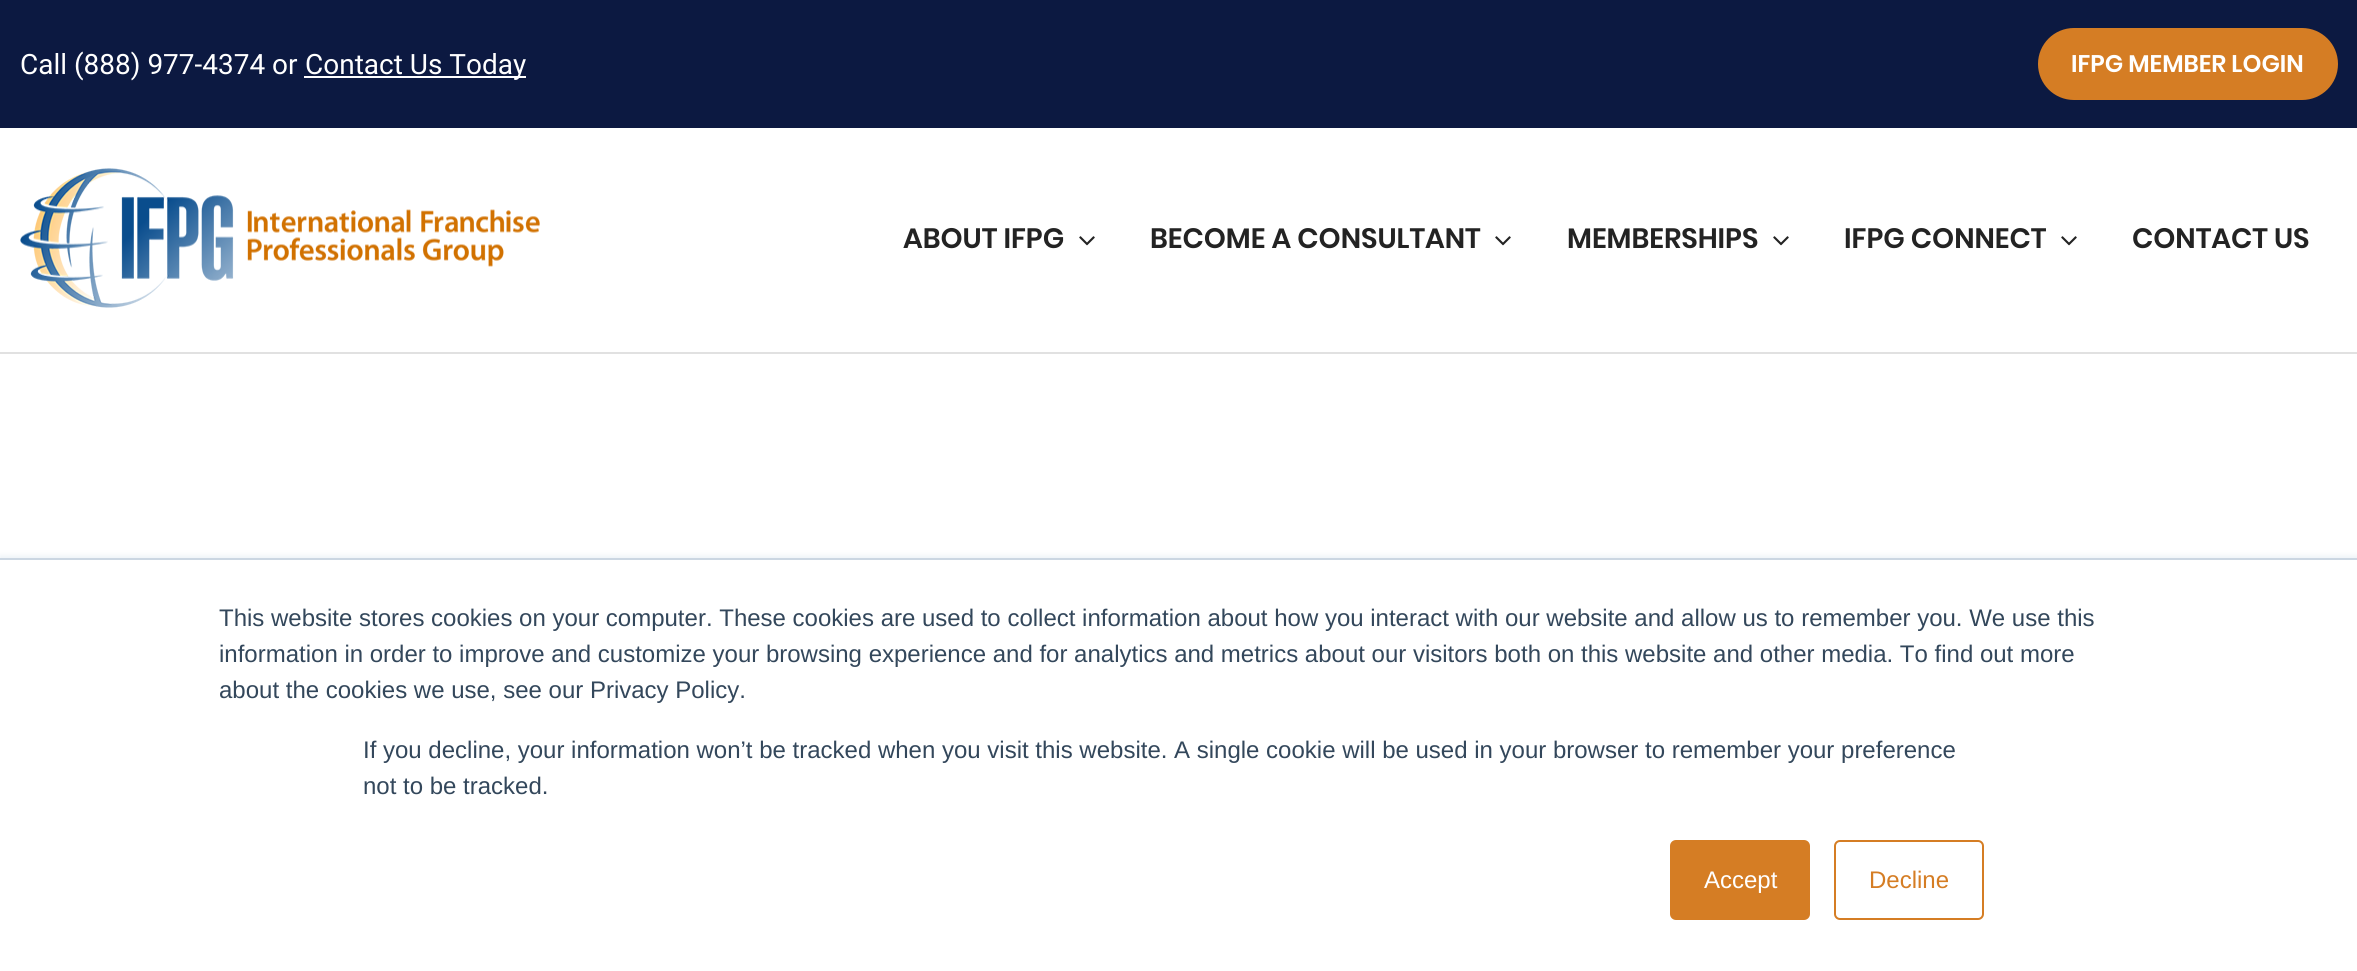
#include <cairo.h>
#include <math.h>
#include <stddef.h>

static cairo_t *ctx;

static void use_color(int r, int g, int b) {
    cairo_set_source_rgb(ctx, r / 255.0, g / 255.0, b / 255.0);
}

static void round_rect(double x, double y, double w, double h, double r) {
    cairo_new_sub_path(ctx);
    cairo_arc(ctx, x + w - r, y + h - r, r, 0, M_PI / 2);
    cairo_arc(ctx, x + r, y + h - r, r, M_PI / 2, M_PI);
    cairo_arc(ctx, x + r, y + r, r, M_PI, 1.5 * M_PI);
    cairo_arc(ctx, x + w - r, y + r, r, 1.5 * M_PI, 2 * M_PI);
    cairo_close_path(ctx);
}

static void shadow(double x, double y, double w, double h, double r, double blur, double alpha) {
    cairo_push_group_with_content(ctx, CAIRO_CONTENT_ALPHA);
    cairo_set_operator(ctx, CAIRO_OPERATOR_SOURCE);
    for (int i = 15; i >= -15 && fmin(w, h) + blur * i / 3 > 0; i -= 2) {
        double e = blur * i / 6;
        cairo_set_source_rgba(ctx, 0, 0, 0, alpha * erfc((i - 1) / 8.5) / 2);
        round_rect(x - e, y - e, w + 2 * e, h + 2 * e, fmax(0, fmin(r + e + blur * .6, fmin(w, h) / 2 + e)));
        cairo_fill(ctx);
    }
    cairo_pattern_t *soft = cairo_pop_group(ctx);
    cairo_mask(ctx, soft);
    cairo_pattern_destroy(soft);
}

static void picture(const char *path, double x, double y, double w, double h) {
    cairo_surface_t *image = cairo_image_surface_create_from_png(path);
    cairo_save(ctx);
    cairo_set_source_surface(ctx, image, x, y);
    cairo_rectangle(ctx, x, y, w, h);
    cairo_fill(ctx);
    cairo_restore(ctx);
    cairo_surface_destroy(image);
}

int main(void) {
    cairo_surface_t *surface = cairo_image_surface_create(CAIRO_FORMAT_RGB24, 2357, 971);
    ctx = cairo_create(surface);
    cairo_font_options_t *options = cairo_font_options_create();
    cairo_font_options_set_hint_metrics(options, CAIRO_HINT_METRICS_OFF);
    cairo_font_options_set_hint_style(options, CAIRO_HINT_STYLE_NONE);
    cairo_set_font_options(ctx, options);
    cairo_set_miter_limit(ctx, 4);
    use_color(255, 255, 255);
    cairo_paint(ctx);
    use_color(225, 225, 225);
    cairo_rectangle(ctx, 0, 352, 2357, 2);
    cairo_fill(ctx);
    use_color(12, 25, 65);
    cairo_rectangle(ctx, 0, 0, 2357, 128);
    cairo_fill(ctx);
    cairo_select_font_face(ctx, "Roboto", CAIRO_FONT_SLANT_NORMAL, CAIRO_FONT_WEIGHT_NORMAL);
    cairo_set_font_size(ctx, 28);
    use_color(255, 255, 255);
    cairo_move_to(ctx, 20, 74);
    cairo_show_text(ctx, "Call (888) 977-4374 or");
    cairo_rectangle(ctx, 304, 76, 222, 2);
    cairo_fill(ctx);
    cairo_move_to(ctx, 305, 74);
    cairo_show_text(ctx, "Contact Us Today");
    use_color(213, 125, 36);
    round_rect(2040, 30, 296, 68, 34);
    cairo_fill_preserve(ctx);
    cairo_set_line_width(ctx, 4);
    cairo_stroke(ctx);
    cairo_select_font_face(ctx, "Poppins SemiBold", CAIRO_FONT_SLANT_NORMAL, CAIRO_FONT_WEIGHT_NORMAL);
    cairo_set_font_size(ctx, 24);
    use_color(255, 255, 255);
    cairo_move_to(ctx, 2071, 72);
    cairo_show_text(ctx, "IFPG MEMBER LOGIN");
    picture("img1.png", 20, 168, 520, 140);
    cairo_set_font_size(ctx, 28);
    use_color(35, 35, 35);
    cairo_move_to(ctx, 903, 248);
    cairo_show_text(ctx, "ABOUT IFPG");
    picture("img2.png", 1079, 236, 16, 10);
    cairo_move_to(ctx, 1150, 248);
    cairo_show_text(ctx, "BECOME A CONSULTANT");
    picture("img2.png", 1495, 236, 16, 10);
    cairo_move_to(ctx, 1567, 248);
    cairo_show_text(ctx, "MEMBERSHIPS");
    picture("img2.png", 1773, 236, 16, 10);
    cairo_move_to(ctx, 1844, 248);
    cairo_show_text(ctx, "IFPG CONNECT");
    picture("img2.png", 2061, 236, 16, 10);
    cairo_move_to(ctx, 2132, 248);
    cairo_show_text(ctx, "CONTACT US");
    use_color(234, 240, 246);
    shadow(0, 556, 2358, 414, 0, 3, 1);
    use_color(255, 255, 255);
    cairo_rectangle(ctx, 0, 560, 2357, 411);
    cairo_fill(ctx);
    use_color(203, 214, 226);
    cairo_rectangle(ctx, 0, 558, 2357, 2);
    cairo_fill(ctx);
    cairo_select_font_face(ctx, "Liberation Sans", CAIRO_FONT_SLANT_NORMAL, CAIRO_FONT_WEIGHT_NORMAL);
    cairo_set_font_size(ctx, 24);
    use_color(51, 71, 91);
    cairo_move_to(ctx, 219, 626);
    cairo_show_text(ctx, "This website stores cookies on your computer. These cookies are used to collect information about how you interact with our website and allow us to remember you. We use this");
    cairo_move_to(ctx, 219, 662);
    cairo_show_text(ctx, "information in order to improve and customize your browsing experience and for analytics and metrics about our visitors both on this website and other media. To find out more");
    cairo_move_to(ctx, 219, 698);
    cairo_show_text(ctx, "about the cookies we use, see our Privacy Policy.");
    cairo_move_to(ctx, 363, 758);
    cairo_show_text(ctx, "If you decline, your information won’t be tracked when you visit this website. A single cookie will be used in your browser to remember your preference");
    cairo_move_to(ctx, 363, 794);
    cairo_show_text(ctx, "not to be tracked.");
    use_color(213, 125, 36);
    round_rect(1671, 841, 138, 78, 5);
    cairo_fill_preserve(ctx);
    cairo_set_line_width(ctx, 2);
    cairo_stroke(ctx);
    use_color(255, 255, 255);
    cairo_move_to(ctx, 1704, 888);
    cairo_show_text(ctx, "Accept");
    round_rect(1835, 841, 148, 78, 5);
    use_color(213, 125, 36);
    cairo_stroke(ctx);
    cairo_move_to(ctx, 1869, 888);
    cairo_show_text(ctx, "Decline");
    cairo_surface_write_to_png(surface, "result.png");
    cairo_font_options_destroy(options);
    cairo_destroy(ctx);
    cairo_surface_destroy(surface);
    return 0;
}
